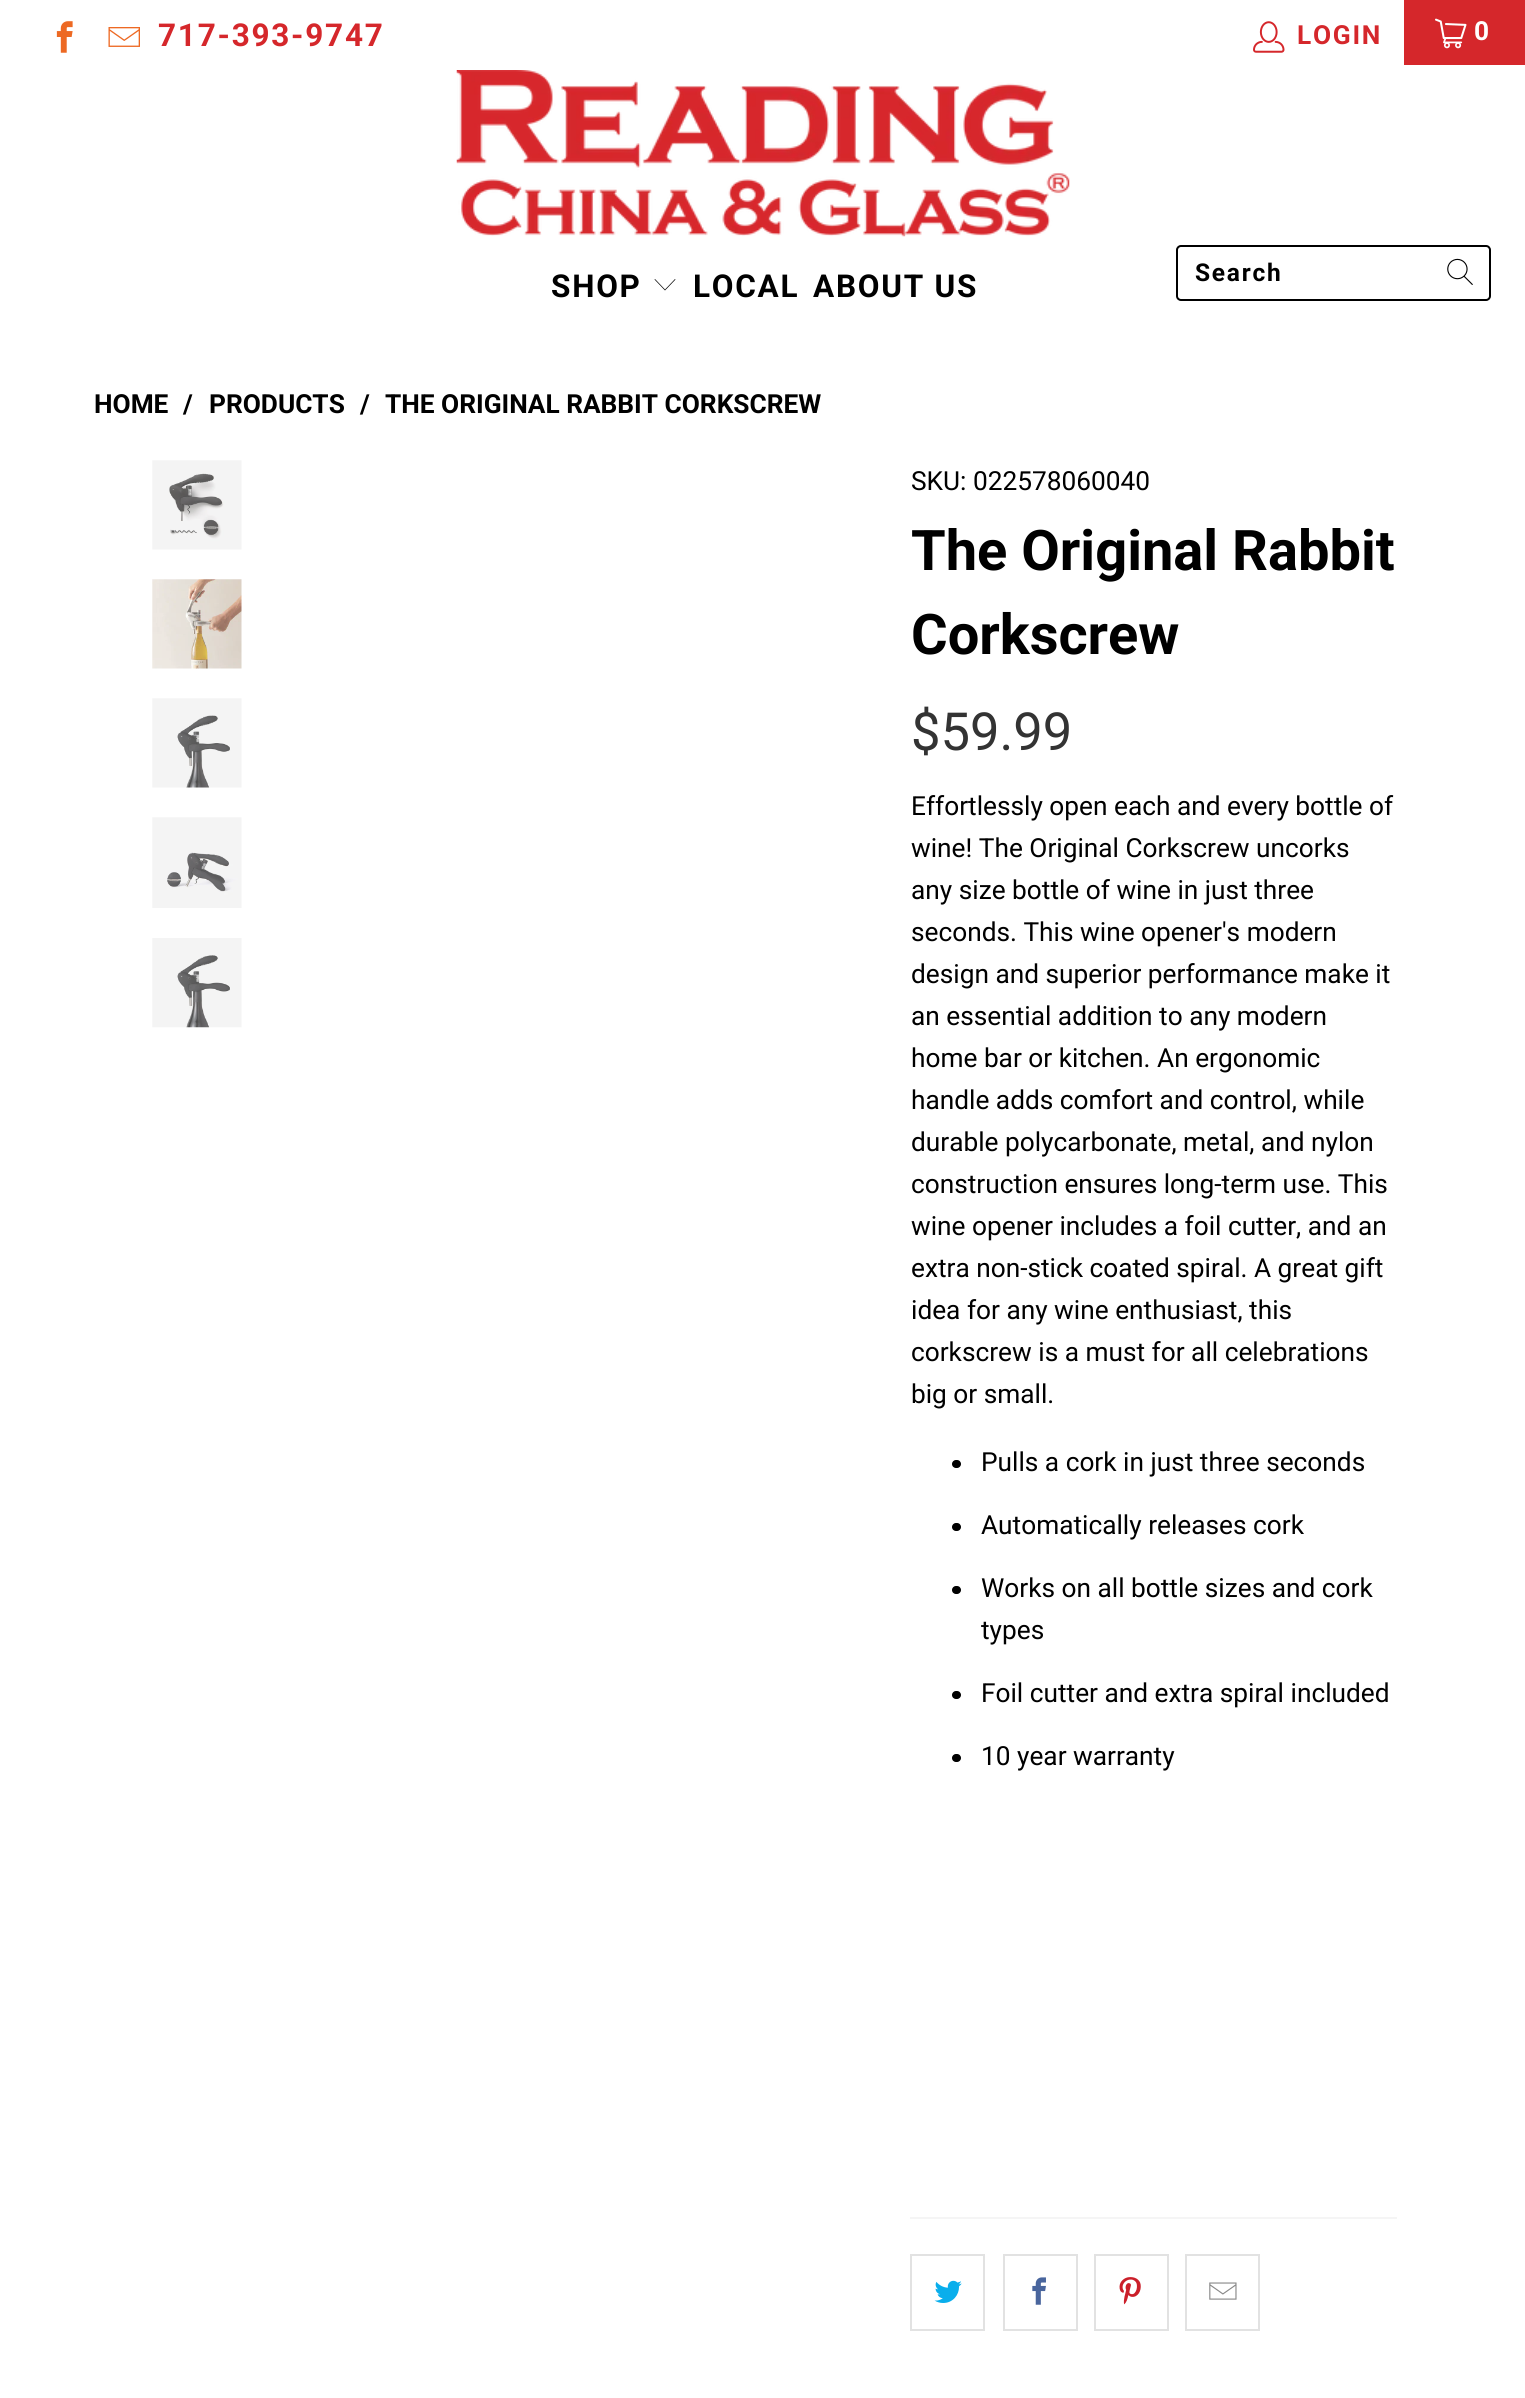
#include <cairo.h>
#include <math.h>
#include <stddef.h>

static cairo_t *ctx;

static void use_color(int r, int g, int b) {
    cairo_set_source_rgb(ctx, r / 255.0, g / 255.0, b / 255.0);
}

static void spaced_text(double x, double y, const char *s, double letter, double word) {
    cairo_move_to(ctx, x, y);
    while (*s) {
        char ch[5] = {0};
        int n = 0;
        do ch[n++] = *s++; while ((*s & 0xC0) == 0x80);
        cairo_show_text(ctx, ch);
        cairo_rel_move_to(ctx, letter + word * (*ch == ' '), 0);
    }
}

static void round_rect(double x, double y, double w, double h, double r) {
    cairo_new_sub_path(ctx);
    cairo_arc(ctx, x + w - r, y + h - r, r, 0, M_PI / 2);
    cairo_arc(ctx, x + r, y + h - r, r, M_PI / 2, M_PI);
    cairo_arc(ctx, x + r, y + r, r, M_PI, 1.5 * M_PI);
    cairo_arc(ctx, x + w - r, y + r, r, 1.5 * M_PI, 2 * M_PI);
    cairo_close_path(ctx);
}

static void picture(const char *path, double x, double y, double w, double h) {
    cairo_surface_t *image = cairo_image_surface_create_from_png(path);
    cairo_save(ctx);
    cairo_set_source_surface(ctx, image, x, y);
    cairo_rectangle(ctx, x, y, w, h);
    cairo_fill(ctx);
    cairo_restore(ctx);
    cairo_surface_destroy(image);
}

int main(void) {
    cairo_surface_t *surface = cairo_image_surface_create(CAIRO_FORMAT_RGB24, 1525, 2398);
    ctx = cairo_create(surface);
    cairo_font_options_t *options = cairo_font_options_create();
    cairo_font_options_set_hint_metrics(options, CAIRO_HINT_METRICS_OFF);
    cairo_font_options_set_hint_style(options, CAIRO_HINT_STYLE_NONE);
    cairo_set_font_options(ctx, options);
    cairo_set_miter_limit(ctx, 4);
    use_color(255, 255, 255);
    cairo_paint(ctx);
    picture("img1.png", 56, 21, 17, 32);
    picture("img2.png", 108, 27, 32, 20);
    cairo_select_font_face(ctx, "Roboto", CAIRO_FONT_SLANT_NORMAL, CAIRO_FONT_WEIGHT_BOLD);
    cairo_set_font_size(ctx, 31.5);
    use_color(213, 39, 43);
    spaced_text(158, 46, "717-393-9747", 1.75, 0);
    picture("img3.png", 1253, 21, 32, 32);
    cairo_set_font_size(ctx, 26.25);
    spaced_text(1297, 44, "LOGIN", 1.75, 0);
    cairo_rectangle(ctx, 1404, 0, 121, 65);
    cairo_fill(ctx);
    picture("img4.png", 1435, 18, 32, 31);
    use_color(255, 255, 255);
    spaced_text(1474, 40, "0", 1.75, 0);
    picture("img5.png", 456, 70, 614, 167);
    round_rect(1177, 246, 313, 54, 4);
    use_color(0, 0, 0);
    cairo_stroke(ctx);
    cairo_set_font_size(ctx, 24.5);
    spaced_text(1195, 281, "Search", 1.75, 0);
    picture("img6.png", 1447, 258, 26, 27);
    cairo_set_font_size(ctx, 31.5);
    spaced_text(551, 297, "SHOP", 1.75, 0);
    cairo_new_path(ctx);
    cairo_move_to(ctx, 665, 290.5);
    cairo_line_to(ctx, 654.5, 279.5);
    cairo_line_to(ctx, 655, 279);
    cairo_line_to(ctx, 665, 289.5);
    cairo_line_to(ctx, 675, 279);
    cairo_line_to(ctx, 675.5, 279.5);
    cairo_close_path(ctx);
    cairo_fill(ctx);
    spaced_text(693, 297, "LOCAL", 1.75, 0);
    spaced_text(813, 297, "ABOUT US", 1.75, 0);
    cairo_set_font_size(ctx, 26.25);
    cairo_move_to(ctx, 94, 413);
    cairo_show_text(ctx, "HOME");
    cairo_move_to(ctx, 183, 413);
    cairo_show_text(ctx, "/");
    cairo_move_to(ctx, 209, 413);
    cairo_show_text(ctx, "PRODUCTS");
    cairo_move_to(ctx, 360, 413);
    cairo_show_text(ctx, "/");
    cairo_move_to(ctx, 385, 413);
    cairo_show_text(ctx, "THE ORIGINAL RABBIT CORKSCREW");
    picture("img7.png", 152, 460, 90, 90);
    picture("img8.png", 152, 579, 90, 90);
    picture("img9.png", 152, 698, 90, 90);
    picture("img10.png", 152, 817, 90, 91);
    picture("img11.png", 152, 938, 90, 90);
    cairo_select_font_face(ctx, "Roboto", CAIRO_FONT_SLANT_NORMAL, CAIRO_FONT_WEIGHT_NORMAL);
    cairo_move_to(ctx, 911, 490);
    cairo_show_text(ctx, "SKU: 022578060040");
    cairo_select_font_face(ctx, "Roboto", CAIRO_FONT_SLANT_NORMAL, CAIRO_FONT_WEIGHT_BOLD);
    cairo_set_font_size(ctx, 56);
    cairo_move_to(ctx, 911, 570);
    cairo_show_text(ctx, "The Original Rabbit");
    cairo_move_to(ctx, 911, 654);
    cairo_show_text(ctx, "Corkscrew");
    cairo_select_font_face(ctx, "Roboto", CAIRO_FONT_SLANT_NORMAL, CAIRO_FONT_WEIGHT_NORMAL);
    cairo_set_font_size(ctx, 52.5);
    use_color(51, 51, 51);
    cairo_move_to(ctx, 911, 750);
    cairo_show_text(ctx, "$59.99");
    cairo_set_font_size(ctx, 26.25);
    use_color(0, 0, 0);
    cairo_move_to(ctx, 911, 815);
    cairo_show_text(ctx, "Effortlessly open each and every bottle of");
    cairo_move_to(ctx, 911, 857);
    cairo_show_text(ctx, "wine! The Original Corkscrew uncorks");
    cairo_move_to(ctx, 911, 899);
    cairo_show_text(ctx, "any size bottle of wine in just three");
    cairo_move_to(ctx, 911, 941);
    cairo_show_text(ctx, "seconds. This wine opener's modern");
    cairo_move_to(ctx, 911, 983);
    cairo_show_text(ctx, "design and superior performance make it");
    cairo_move_to(ctx, 911, 1025);
    cairo_show_text(ctx, "an essential addition to any modern");
    cairo_move_to(ctx, 911, 1067);
    cairo_show_text(ctx, "home bar or kitchen. An ergonomic");
    cairo_move_to(ctx, 911, 1109);
    cairo_show_text(ctx, "handle adds comfort and control, while");
    cairo_move_to(ctx, 911, 1151);
    cairo_show_text(ctx, "durable polycarbonate, metal, and nylon");
    cairo_move_to(ctx, 911, 1193);
    cairo_show_text(ctx, "construction ensures long-term use. This");
    cairo_move_to(ctx, 911, 1235);
    cairo_show_text(ctx, "wine opener includes a foil cutter, and an");
    cairo_move_to(ctx, 911, 1277);
    cairo_show_text(ctx, "extra non-stick coated spiral. A great gift");
    cairo_move_to(ctx, 911, 1319);
    cairo_show_text(ctx, "idea for any wine enthusiast, this");
    cairo_move_to(ctx, 911, 1361);
    cairo_show_text(ctx, "corkscrew is a must for all celebrations");
    cairo_move_to(ctx, 911, 1403);
    cairo_show_text(ctx, "big or small.");
    round_rect(952, 1460, 9, 8, 4);
    cairo_fill(ctx);
    cairo_move_to(ctx, 981, 1471);
    cairo_show_text(ctx, "Pulls a cork in just three seconds");
    round_rect(952, 1523, 9, 8, 4);
    cairo_fill(ctx);
    cairo_move_to(ctx, 981, 1534);
    cairo_show_text(ctx, "Automatically releases cork");
    round_rect(952, 1586, 9, 8, 4);
    cairo_fill(ctx);
    cairo_move_to(ctx, 981, 1597);
    cairo_show_text(ctx, "Works on all bottle sizes and cork");
    cairo_move_to(ctx, 981, 1639);
    cairo_show_text(ctx, "types");
    round_rect(952, 1691, 9, 8, 4);
    cairo_fill(ctx);
    cairo_move_to(ctx, 981, 1702);
    cairo_show_text(ctx, "Foil cutter and extra spiral included");
    round_rect(952, 1754, 9, 8, 4);
    cairo_fill(ctx);
    cairo_move_to(ctx, 981, 1765);
    cairo_show_text(ctx, "10 year warranty");
    use_color(245, 245, 245);
    cairo_rectangle(ctx, 910, 2217, 487, 2);
    cairo_fill(ctx);
    cairo_rectangle(ctx, 911, 2255, 73, 75);
    use_color(226, 226, 226);
    cairo_stroke(ctx);
    picture("img12.png", 934, 2280, 28, 23);
    cairo_rectangle(ctx, 1004, 2255, 73, 75);
    cairo_stroke(ctx);
    picture("img13.png", 1032, 2277, 14, 28);
    cairo_rectangle(ctx, 1095, 2255, 73, 75);
    cairo_stroke(ctx);
    picture("img14.png", 1119, 2277, 22, 28);
    cairo_rectangle(ctx, 1186, 2255, 73, 75);
    cairo_stroke(ctx);
    picture("img15.png", 1209, 2282, 28, 18);
    cairo_surface_write_to_png(surface, "result.png");
    cairo_font_options_destroy(options);
    cairo_destroy(ctx);
    cairo_surface_destroy(surface);
    return 0;
}
